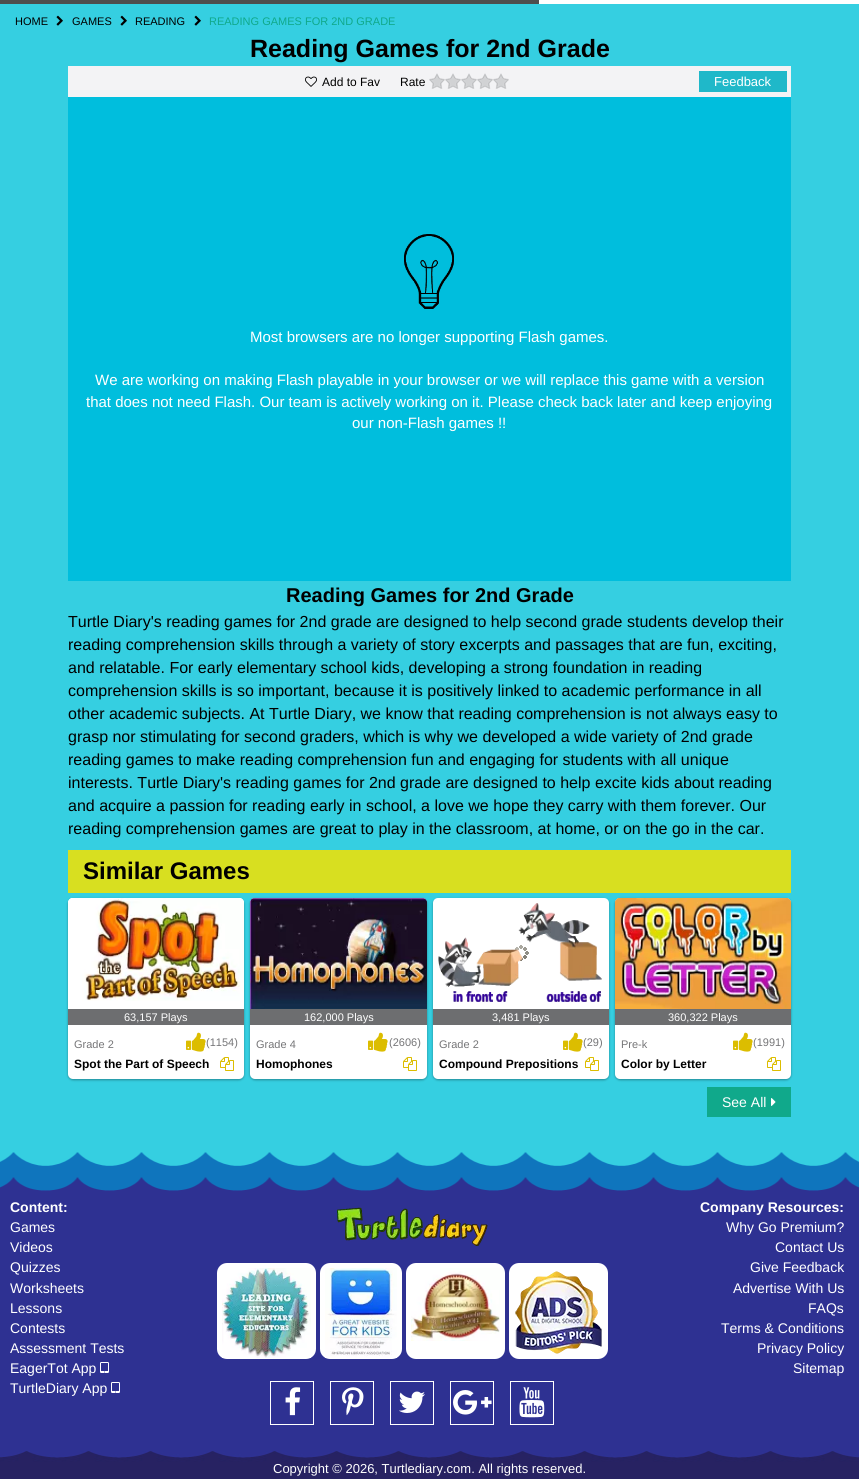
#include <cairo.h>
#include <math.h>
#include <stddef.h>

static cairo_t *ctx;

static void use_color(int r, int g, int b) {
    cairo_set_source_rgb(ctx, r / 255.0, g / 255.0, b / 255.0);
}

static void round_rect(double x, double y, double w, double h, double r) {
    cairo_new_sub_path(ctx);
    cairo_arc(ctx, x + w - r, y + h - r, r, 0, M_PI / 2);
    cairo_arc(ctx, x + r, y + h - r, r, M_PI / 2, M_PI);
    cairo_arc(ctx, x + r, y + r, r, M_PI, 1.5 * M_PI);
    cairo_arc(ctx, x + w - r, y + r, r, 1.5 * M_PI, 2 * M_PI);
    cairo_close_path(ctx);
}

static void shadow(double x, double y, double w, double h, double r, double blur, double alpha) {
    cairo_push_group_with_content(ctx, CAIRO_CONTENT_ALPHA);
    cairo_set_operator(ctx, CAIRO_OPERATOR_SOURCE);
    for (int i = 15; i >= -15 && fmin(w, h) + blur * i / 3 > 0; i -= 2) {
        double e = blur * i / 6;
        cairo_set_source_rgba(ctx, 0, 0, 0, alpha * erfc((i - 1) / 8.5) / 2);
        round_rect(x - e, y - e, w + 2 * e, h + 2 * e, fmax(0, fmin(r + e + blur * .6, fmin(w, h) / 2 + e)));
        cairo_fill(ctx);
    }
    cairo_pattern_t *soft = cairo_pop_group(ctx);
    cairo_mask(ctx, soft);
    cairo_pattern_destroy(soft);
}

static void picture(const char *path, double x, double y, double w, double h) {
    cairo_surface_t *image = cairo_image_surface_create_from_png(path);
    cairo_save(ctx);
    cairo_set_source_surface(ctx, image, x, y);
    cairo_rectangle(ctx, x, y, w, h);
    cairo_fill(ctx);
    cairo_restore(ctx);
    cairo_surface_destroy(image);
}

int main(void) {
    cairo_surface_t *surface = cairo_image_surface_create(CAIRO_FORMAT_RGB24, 859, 1479);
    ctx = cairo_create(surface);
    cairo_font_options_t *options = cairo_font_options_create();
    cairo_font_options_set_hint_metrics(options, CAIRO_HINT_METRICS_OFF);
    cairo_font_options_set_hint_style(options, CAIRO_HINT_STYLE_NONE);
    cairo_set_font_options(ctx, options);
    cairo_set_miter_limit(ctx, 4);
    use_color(255, 255, 255);
    cairo_paint(ctx);
    use_color(78, 78, 78);
    cairo_rectangle(ctx, 0, 0, 539, 4);
    cairo_fill(ctx);
    use_color(53, 207, 225);
    cairo_rectangle(ctx, 0, 4, 859, 1162);
    cairo_fill(ctx);
    cairo_select_font_face(ctx, "Liberation Sans", CAIRO_FONT_SLANT_NORMAL, CAIRO_FONT_WEIGHT_NORMAL);
    cairo_set_font_size(ctx, 11);
    use_color(0, 0, 0);
    cairo_move_to(ctx, 15, 25);
    cairo_show_text(ctx, "HOME");
    picture("img1.png", 56, 15, 7, 11);
    cairo_move_to(ctx, 72, 25);
    cairo_show_text(ctx, "GAMES");
    picture("img1.png", 120, 15, 7, 11);
    cairo_move_to(ctx, 135, 25);
    cairo_show_text(ctx, "READING");
    picture("img1.png", 194, 15, 7, 11);
    use_color(16, 169, 138);
    cairo_move_to(ctx, 209, 25);
    cairo_show_text(ctx, "READING GAMES FOR 2ND GRADE");
    cairo_select_font_face(ctx, "Liberation Sans", CAIRO_FONT_SLANT_NORMAL, CAIRO_FONT_WEIGHT_BOLD);
    cairo_set_font_size(ctx, 25);
    use_color(0, 0, 0);
    cairo_move_to(ctx, 250, 57);
    cairo_show_text(ctx, "Reading Games for 2nd Grade");
    use_color(243, 243, 245);
    cairo_rectangle(ctx, 68, 66, 723, 31);
    cairo_fill(ctx);
    picture("img2.png", 305, 76, 12, 11);
    cairo_select_font_face(ctx, "Liberation Sans", CAIRO_FONT_SLANT_NORMAL, CAIRO_FONT_WEIGHT_NORMAL);
    cairo_set_font_size(ctx, 12);
    use_color(0, 0, 0);
    cairo_move_to(ctx, 322, 86);
    cairo_show_text(ctx, "Add to Fav");
    cairo_move_to(ctx, 400, 86);
    cairo_show_text(ctx, "Rate");
    picture("img3.png", 429, 73, 80, 16);
    use_color(31, 184, 201);
    cairo_rectangle(ctx, 699, 71, 88, 21);
    cairo_fill(ctx);
    cairo_set_font_size(ctx, 13);
    use_color(255, 255, 255);
    cairo_move_to(ctx, 714, 86);
    cairo_show_text(ctx, "Feedback");
    use_color(0, 190, 221);
    cairo_rectangle(ctx, 68, 97, 723, 484);
    cairo_fill(ctx);
    picture("img4.png", 404, 234, 50, 75);
    cairo_set_font_size(ctx, 15);
    use_color(255, 255, 255);
    cairo_move_to(ctx, 250, 342);
    cairo_show_text(ctx, "Most browsers are no longer supporting Flash games.");
    cairo_move_to(ctx, 95, 385);
    cairo_show_text(ctx, "We are working on making Flash playable in your browser or we will replace this game with a version");
    cairo_move_to(ctx, 86, 407);
    cairo_show_text(ctx, "that does not need Flash. Our team is actively working on it. Please check back later and keep enjoying");
    cairo_move_to(ctx, 352, 428);
    cairo_show_text(ctx, "our non-Flash games !!");
    cairo_select_font_face(ctx, "Liberation Sans", CAIRO_FONT_SLANT_NORMAL, CAIRO_FONT_WEIGHT_BOLD);
    cairo_set_font_size(ctx, 20);
    use_color(0, 0, 0);
    cairo_move_to(ctx, 286, 602);
    cairo_show_text(ctx, "Reading Games for 2nd Grade");
    cairo_select_font_face(ctx, "Liberation Sans", CAIRO_FONT_SLANT_NORMAL, CAIRO_FONT_WEIGHT_NORMAL);
    cairo_set_font_size(ctx, 16);
    cairo_move_to(ctx, 68, 627);
    cairo_show_text(ctx, "Turtle Diary's reading games for 2nd grade are designed to help second grade students develop their");
    cairo_move_to(ctx, 68, 650);
    cairo_show_text(ctx, "reading comprehension skills through a variety of story excerpts and passages that are fun, exciting,");
    cairo_move_to(ctx, 68, 673);
    cairo_show_text(ctx, "and relatable. For early elementary school kids, developing a strong foundation in reading");
    cairo_move_to(ctx, 68, 696);
    cairo_show_text(ctx, "comprehension skills is so important, because it is positively linked to academic performance in all");
    cairo_move_to(ctx, 68, 719);
    cairo_show_text(ctx, "other academic subjects. At Turtle Diary, we know that reading comprehension is not always easy to");
    cairo_move_to(ctx, 68, 742);
    cairo_show_text(ctx, "grasp nor stimulating for second graders, which is why we developed a wide variety of 2nd grade");
    cairo_move_to(ctx, 68, 765);
    cairo_show_text(ctx, "reading games to make reading comprehension fun and engaging for students with all unique");
    cairo_move_to(ctx, 68, 788);
    cairo_show_text(ctx, "interests. Turtle Diary's reading games for 2nd grade are designed to help excite kids about reading");
    cairo_move_to(ctx, 68, 811);
    cairo_show_text(ctx, "and acquire a passion for reading early in school, a love we hope they carry with them forever. Our");
    cairo_move_to(ctx, 68, 834);
    cairo_show_text(ctx, "reading comprehension games are great to play in the classroom, at home, or on the go in the car.");
    use_color(216, 223, 32);
    cairo_rectangle(ctx, 68, 850, 723, 43);
    cairo_fill(ctx);
    cairo_select_font_face(ctx, "Liberation Sans", CAIRO_FONT_SLANT_NORMAL, CAIRO_FONT_WEIGHT_BOLD);
    cairo_set_font_size(ctx, 24);
    use_color(0, 0, 0);
    cairo_move_to(ctx, 83, 879);
    cairo_show_text(ctx, "Similar Games");
    use_color(0, 0, 0);
    shadow(68, 899, 176, 181, 5, 1, 0.24);
    shadow(68, 899, 176, 181, 5, 1.5, 0.12);
    use_color(255, 255, 255);
    round_rect(68, 898, 176, 181, 5);
    cairo_fill(ctx);
    picture("img5.png", 68, 898, 176, 103);
    picture("img6.png", 68, 898, 176, 4);
    use_color(109, 110, 112);
    cairo_rectangle(ctx, 68, 1009, 176, 16);
    cairo_fill(ctx);
    cairo_select_font_face(ctx, "Liberation Sans", CAIRO_FONT_SLANT_NORMAL, CAIRO_FONT_WEIGHT_NORMAL);
    cairo_set_font_size(ctx, 11);
    use_color(255, 255, 255);
    cairo_move_to(ctx, 124, 1021);
    cairo_show_text(ctx, "63,157 Plays");
    use_color(117, 117, 119);
    cairo_move_to(ctx, 74, 1048);
    cairo_show_text(ctx, "Grade 2");
    picture("img7.png", 186, 1032, 20, 20);
    cairo_move_to(ctx, 206, 1046);
    cairo_show_text(ctx, "(1154)");
    cairo_select_font_face(ctx, "Liberation Sans", CAIRO_FONT_SLANT_NORMAL, CAIRO_FONT_WEIGHT_BOLD);
    cairo_set_font_size(ctx, 12);
    use_color(0, 0, 0);
    cairo_move_to(ctx, 74, 1068);
    cairo_show_text(ctx, "Spot the Part of Speech");
    picture("img8.png", 220, 1057, 14, 14);
    use_color(0, 0, 0);
    shadow(250, 899, 177, 181, 5, 1, 0.24);
    shadow(250, 899, 177, 181, 5, 1.5, 0.12);
    use_color(255, 255, 255);
    round_rect(250, 898, 177, 181, 5);
    cairo_fill(ctx);
    picture("img9.png", 250, 898, 177, 111);
    picture("img10.png", 250, 898, 177, 5);
    use_color(109, 110, 112);
    cairo_rectangle(ctx, 250, 1009, 177, 16);
    cairo_fill(ctx);
    cairo_select_font_face(ctx, "Liberation Sans", CAIRO_FONT_SLANT_NORMAL, CAIRO_FONT_WEIGHT_NORMAL);
    cairo_set_font_size(ctx, 11);
    use_color(255, 255, 255);
    cairo_move_to(ctx, 304, 1021);
    cairo_show_text(ctx, "162,000 Plays");
    use_color(117, 117, 119);
    cairo_move_to(ctx, 256, 1048);
    cairo_show_text(ctx, "Grade 4");
    picture("img7.png", 368, 1032, 20, 20);
    cairo_move_to(ctx, 389, 1046);
    cairo_show_text(ctx, "(2606)");
    cairo_select_font_face(ctx, "Liberation Sans", CAIRO_FONT_SLANT_NORMAL, CAIRO_FONT_WEIGHT_BOLD);
    cairo_set_font_size(ctx, 12);
    use_color(0, 0, 0);
    cairo_move_to(ctx, 256, 1068);
    cairo_show_text(ctx, "Homophones");
    picture("img8.png", 403, 1057, 14, 14);
    use_color(0, 0, 0);
    shadow(433, 899, 176, 181, 5, 1, 0.24);
    shadow(433, 899, 176, 181, 5, 1.5, 0.12);
    use_color(255, 255, 255);
    round_rect(433, 898, 176, 181, 5);
    cairo_fill(ctx);
    picture("img11.png", 438, 903, 164, 99);
    picture("img12.png", 438, 903, 164, 99);
    use_color(109, 110, 112);
    cairo_rectangle(ctx, 433, 1009, 176, 16);
    cairo_fill(ctx);
    cairo_select_font_face(ctx, "Liberation Sans", CAIRO_FONT_SLANT_NORMAL, CAIRO_FONT_WEIGHT_NORMAL);
    cairo_set_font_size(ctx, 11);
    use_color(255, 255, 255);
    cairo_move_to(ctx, 492, 1021);
    cairo_show_text(ctx, "3,481 Plays");
    use_color(117, 117, 119);
    cairo_move_to(ctx, 439, 1048);
    cairo_show_text(ctx, "Grade 2");
    picture("img7.png", 563, 1032, 20, 20);
    cairo_move_to(ctx, 583, 1046);
    cairo_show_text(ctx, "(29)");
    cairo_select_font_face(ctx, "Liberation Sans", CAIRO_FONT_SLANT_NORMAL, CAIRO_FONT_WEIGHT_BOLD);
    cairo_set_font_size(ctx, 12);
    use_color(0, 0, 0);
    cairo_move_to(ctx, 439, 1068);
    cairo_show_text(ctx, "Compound Prepositions");
    picture("img8.png", 585, 1057, 14, 14);
    use_color(0, 0, 0);
    shadow(615, 899, 176, 181, 5, 1, 0.24);
    shadow(615, 899, 176, 181, 5, 1.5, 0.12);
    use_color(255, 255, 255);
    round_rect(615, 898, 176, 181, 5);
    cairo_fill(ctx);
    picture("img13.png", 615, 898, 176, 111);
    picture("img14.png", 615, 898, 176, 5);
    use_color(109, 110, 112);
    cairo_rectangle(ctx, 615, 1009, 176, 16);
    cairo_fill(ctx);
    cairo_select_font_face(ctx, "Liberation Sans", CAIRO_FONT_SLANT_NORMAL, CAIRO_FONT_WEIGHT_NORMAL);
    cairo_set_font_size(ctx, 11);
    use_color(255, 255, 255);
    cairo_move_to(ctx, 668, 1021);
    cairo_show_text(ctx, "360,322 Plays");
    use_color(117, 117, 119);
    cairo_move_to(ctx, 621, 1048);
    cairo_show_text(ctx, "Pre-k");
    picture("img7.png", 733, 1032, 20, 20);
    cairo_move_to(ctx, 753, 1046);
    cairo_show_text(ctx, "(1991)");
    cairo_select_font_face(ctx, "Liberation Sans", CAIRO_FONT_SLANT_NORMAL, CAIRO_FONT_WEIGHT_BOLD);
    cairo_set_font_size(ctx, 12);
    use_color(0, 0, 0);
    cairo_move_to(ctx, 621, 1068);
    cairo_show_text(ctx, "Color by Letter");
    picture("img8.png", 767, 1057, 14, 14);
    use_color(16, 169, 139);
    cairo_rectangle(ctx, 707, 1087, 84, 30);
    cairo_fill(ctx);
    cairo_select_font_face(ctx, "Liberation Sans", CAIRO_FONT_SLANT_NORMAL, CAIRO_FONT_WEIGHT_NORMAL);
    cairo_set_font_size(ctx, 14);
    use_color(255, 255, 255);
    cairo_move_to(ctx, 722, 1107);
    cairo_show_text(ctx, "See All");
    picture("img15.png", 771, 1098, 5, 8);
    use_color(46, 49, 146);
    cairo_rectangle(ctx, 0, 1177, 859, 274);
    cairo_fill(ctx);
    picture("img16.png", 0, 1451, 859, 28);
    picture("img17.png", 0, 1152, 859, 39);
    cairo_select_font_face(ctx, "Liberation Sans", CAIRO_FONT_SLANT_NORMAL, CAIRO_FONT_WEIGHT_BOLD);
    use_color(255, 255, 255);
    cairo_move_to(ctx, 10, 1212);
    cairo_show_text(ctx, "Content:");
    cairo_select_font_face(ctx, "Liberation Sans", CAIRO_FONT_SLANT_NORMAL, CAIRO_FONT_WEIGHT_NORMAL);
    cairo_move_to(ctx, 10, 1232);
    cairo_show_text(ctx, "Games");
    cairo_move_to(ctx, 10, 1252);
    cairo_show_text(ctx, "Videos");
    cairo_move_to(ctx, 10, 1272);
    cairo_show_text(ctx, "Quizzes");
    cairo_move_to(ctx, 10, 1293);
    cairo_show_text(ctx, "Worksheets");
    cairo_move_to(ctx, 10, 1313);
    cairo_show_text(ctx, "Lessons");
    cairo_move_to(ctx, 10, 1333);
    cairo_show_text(ctx, "Contests");
    cairo_move_to(ctx, 10, 1353);
    cairo_show_text(ctx, "Assessment Tests");
    cairo_move_to(ctx, 10, 1373);
    cairo_show_text(ctx, "EagerTot App");
    picture("img18.png", 100, 1362, 9, 11);
    cairo_move_to(ctx, 10, 1393);
    cairo_show_text(ctx, "TurtleDiary App");
    picture("img18.png", 111, 1382, 9, 11);
    picture("img19.png", 337, 1207, 151, 39);
    round_rect(217, 1263, 99, 96, 10);
    cairo_fill(ctx);
    picture("img20.png", 222, 1268, 89, 90);
    round_rect(320, 1263, 82, 96, 10);
    cairo_fill(ctx);
    picture("img21.png", 325, 1268, 72, 90);
    round_rect(406, 1263, 99, 96, 10);
    cairo_fill(ctx);
    picture("img22.png", 411, 1268, 89, 73);
    round_rect(509, 1263, 99, 96, 10);
    cairo_fill(ctx);
    picture("img23.png", 515, 1271, 87, 83);
    cairo_rectangle(ctx, 270.5, 1381.5, 43, 43);
    cairo_set_line_width(ctx, 1);
    cairo_stroke(ctx);
    picture("img24.png", 285, 1387, 16, 29);
    cairo_rectangle(ctx, 330.5, 1381.5, 43, 43);
    cairo_stroke(ctx);
    picture("img25.png", 342, 1387, 22, 29);
    cairo_rectangle(ctx, 390.5, 1381.5, 43, 43);
    cairo_stroke(ctx);
    picture("img26.png", 399, 1391, 26, 22);
    cairo_rectangle(ctx, 450.5, 1381.5, 43, 43);
    cairo_stroke(ctx);
    picture("img27.png", 453, 1390, 39, 25);
    cairo_rectangle(ctx, 510.5, 1381.5, 43, 43);
    cairo_stroke(ctx);
    picture("img28.png", 519, 1387, 26, 31);
    cairo_select_font_face(ctx, "Liberation Sans", CAIRO_FONT_SLANT_NORMAL, CAIRO_FONT_WEIGHT_BOLD);
    cairo_move_to(ctx, 700, 1212);
    cairo_show_text(ctx, "Company Resources:");
    cairo_select_font_face(ctx, "Liberation Sans", CAIRO_FONT_SLANT_NORMAL, CAIRO_FONT_WEIGHT_NORMAL);
    cairo_move_to(ctx, 726, 1232);
    cairo_show_text(ctx, "Why Go Premium?");
    cairo_move_to(ctx, 775, 1252);
    cairo_show_text(ctx, "Contact Us");
    cairo_move_to(ctx, 750, 1272);
    cairo_show_text(ctx, "Give Feedback");
    cairo_move_to(ctx, 733, 1293);
    cairo_show_text(ctx, "Advertise With Us");
    cairo_move_to(ctx, 808, 1313);
    cairo_show_text(ctx, "FAQs");
    cairo_move_to(ctx, 721, 1333);
    cairo_show_text(ctx, "Terms & Conditions");
    cairo_move_to(ctx, 757, 1353);
    cairo_show_text(ctx, "Privacy Policy");
    cairo_move_to(ctx, 793, 1373);
    cairo_show_text(ctx, "Sitemap");
    cairo_set_font_size(ctx, 13);
    cairo_move_to(ctx, 273, 1473);
    cairo_show_text(ctx, "Copyright © 2026, Turtlediary.com. All rights reserved.");
    cairo_surface_write_to_png(surface, "result.png");
    cairo_font_options_destroy(options);
    cairo_destroy(ctx);
    cairo_surface_destroy(surface);
    return 0;
}
